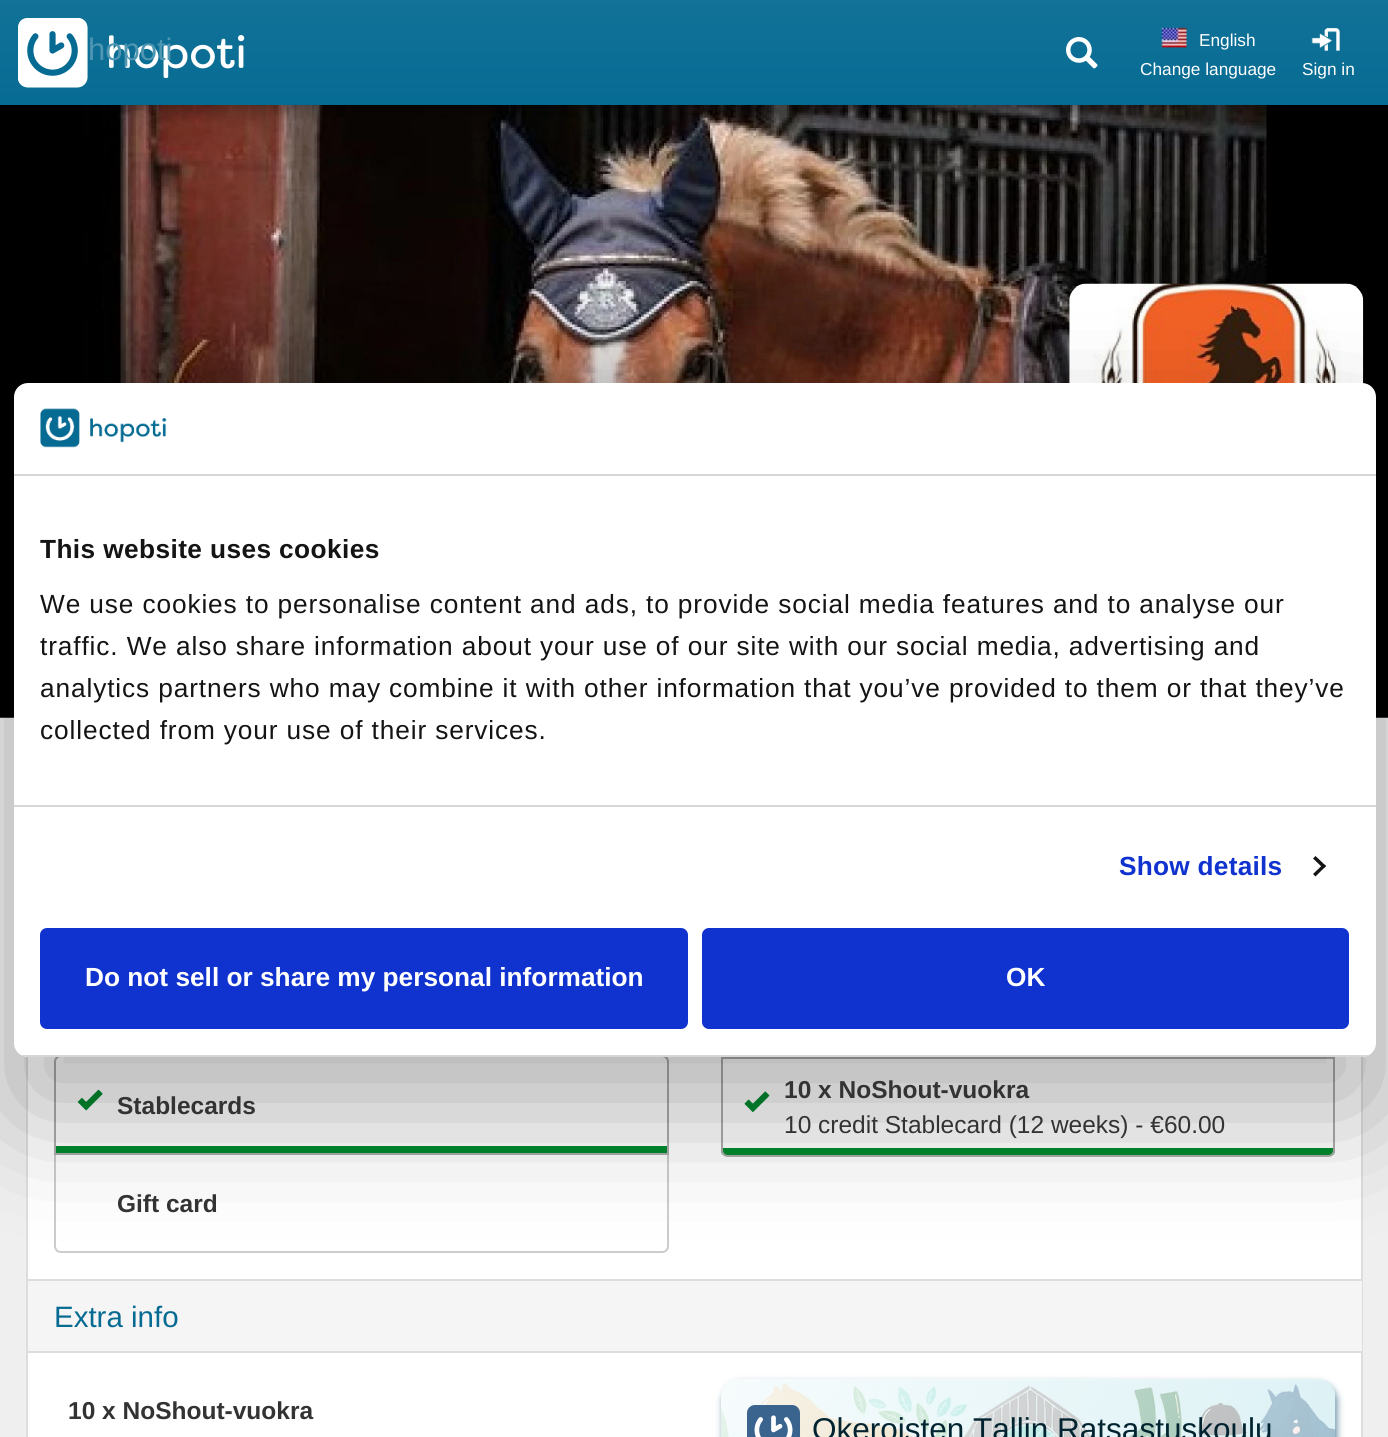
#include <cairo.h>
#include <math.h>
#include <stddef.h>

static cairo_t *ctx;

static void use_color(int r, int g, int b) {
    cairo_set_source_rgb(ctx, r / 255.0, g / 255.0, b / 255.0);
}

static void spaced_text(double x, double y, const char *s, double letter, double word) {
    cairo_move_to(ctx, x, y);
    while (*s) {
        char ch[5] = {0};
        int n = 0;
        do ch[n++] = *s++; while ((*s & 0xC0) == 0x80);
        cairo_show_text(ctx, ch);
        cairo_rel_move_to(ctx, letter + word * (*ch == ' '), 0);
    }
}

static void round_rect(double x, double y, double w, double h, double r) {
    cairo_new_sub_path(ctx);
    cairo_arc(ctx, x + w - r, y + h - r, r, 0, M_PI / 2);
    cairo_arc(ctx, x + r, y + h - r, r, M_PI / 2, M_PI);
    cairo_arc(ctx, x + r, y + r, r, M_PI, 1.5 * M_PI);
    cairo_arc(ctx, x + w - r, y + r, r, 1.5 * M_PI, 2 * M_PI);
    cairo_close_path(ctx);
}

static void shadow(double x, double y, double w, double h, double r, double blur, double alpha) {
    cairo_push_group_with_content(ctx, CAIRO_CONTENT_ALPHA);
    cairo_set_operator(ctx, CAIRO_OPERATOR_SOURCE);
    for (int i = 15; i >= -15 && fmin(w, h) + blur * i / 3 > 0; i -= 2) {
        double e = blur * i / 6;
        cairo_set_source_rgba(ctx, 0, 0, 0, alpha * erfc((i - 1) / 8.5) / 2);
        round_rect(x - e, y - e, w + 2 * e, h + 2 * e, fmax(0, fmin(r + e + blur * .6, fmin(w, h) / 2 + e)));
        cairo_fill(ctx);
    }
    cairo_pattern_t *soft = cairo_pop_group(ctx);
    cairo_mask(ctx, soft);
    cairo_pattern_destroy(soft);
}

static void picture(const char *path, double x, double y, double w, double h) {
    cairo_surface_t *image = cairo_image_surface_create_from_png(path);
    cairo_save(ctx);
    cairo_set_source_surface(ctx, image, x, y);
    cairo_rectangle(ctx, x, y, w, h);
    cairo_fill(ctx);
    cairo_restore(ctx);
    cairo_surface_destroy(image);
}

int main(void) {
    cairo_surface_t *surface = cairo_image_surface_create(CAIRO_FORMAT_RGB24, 1388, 1437);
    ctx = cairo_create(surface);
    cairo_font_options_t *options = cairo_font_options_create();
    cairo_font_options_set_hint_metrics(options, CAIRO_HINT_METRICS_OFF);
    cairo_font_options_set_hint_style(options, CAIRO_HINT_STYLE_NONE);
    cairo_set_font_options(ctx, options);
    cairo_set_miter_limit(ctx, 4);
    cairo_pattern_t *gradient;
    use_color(239, 239, 239);
    cairo_paint(ctx);
    picture("img6.png", 0, 105, 1388, 613);
    use_color(0, 0, 0);
    shadow(0, 5, 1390, 105, 0, 7, 0.3);
    gradient = cairo_pattern_create_linear(695, 0, 695, 105);
    cairo_pattern_add_color_stop_rgba(gradient, 0, 0.071, 0.447, 0.596, 1);
    cairo_pattern_add_color_stop_rgba(gradient, 1, 0.024, 0.42, 0.576, 1);
    cairo_set_source(ctx, gradient);
    cairo_pattern_destroy(gradient);
    cairo_rectangle(ctx, 0, 0, 1388, 105);
    cairo_fill(ctx);
    picture("img1.png", 18, 18, 70, 70);
    picture("img2.png", 109, 35, 136, 43);
    cairo_select_font_face(ctx, "Liberation Sans", CAIRO_FONT_SLANT_NORMAL, CAIRO_FONT_WEIGHT_NORMAL);
    cairo_set_font_size(ctx, 31);
    use_color(79, 150, 179);
    cairo_move_to(ctx, 88, 60);
    cairo_show_text(ctx, "hopoti");
    picture("img3.png", 1066, 37, 32, 32);
    picture("img4.png", 1161, 27, 26, 21);
    cairo_set_font_size(ctx, 17.25);
    use_color(255, 255, 255);
    cairo_move_to(ctx, 1199, 46);
    cairo_show_text(ctx, "English");
    cairo_move_to(ctx, 1140, 75);
    cairo_show_text(ctx, "Change language");
    picture("img5.png", 1311, 28, 29, 23);
    cairo_move_to(ctx, 1302, 75);
    cairo_show_text(ctx, "Sign in");
    gradient = cairo_pattern_create_linear(621, 827, 768, -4.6);
    cairo_pattern_add_color_stop_rgba(gradient, 0.3, 0, 0, 0, 0.5);
    cairo_pattern_add_color_stop_rgba(gradient, 0.64, 0, 0, 0, 0);
    cairo_set_source(ctx, gradient);
    cairo_pattern_destroy(gradient);
    cairo_rectangle(ctx, 0, 203, 1388, 515);
    cairo_fill(ctx);
    picture("img8.png", 1069, 283, 295, 101);
    use_color(255, 255, 255);
    cairo_rectangle(ctx, 28, 1057, 1333, 380);
    cairo_fill(ctx);
    cairo_rectangle(ctx, 27, 831, 1335, 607);
    use_color(221, 221, 221);
    cairo_stroke(ctx);
    cairo_new_path(ctx);
    cairo_move_to(ctx, 55, 1154);
    cairo_line_to(ctx, 668, 1154);
    cairo_line_to(ctx, 668, 1246);
    cairo_curve_to(ctx, 668, 1249.5, 665.5, 1252, 662, 1252);
    cairo_line_to(ctx, 61, 1252);
    cairo_curve_to(ctx, 57.5, 1252, 55, 1249.5, 55, 1246);
    cairo_close_path(ctx);
    use_color(204, 204, 204);
    cairo_stroke(ctx);
    use_color(255, 255, 255);
    cairo_new_path(ctx);
    cairo_move_to(ctx, 61, 1055);
    cairo_line_to(ctx, 662, 1055);
    cairo_curve_to(ctx, 666, 1055, 669, 1058, 669, 1062);
    cairo_line_to(ctx, 669, 1155);
    cairo_line_to(ctx, 54, 1155);
    cairo_line_to(ctx, 54, 1062);
    cairo_curve_to(ctx, 54, 1058, 57, 1055, 61, 1055);
    cairo_close_path(ctx);
    cairo_fill(ctx);
    use_color(0, 138, 47);
    cairo_rectangle(ctx, 54, 1146, 615, 7);
    cairo_fill(ctx);
    cairo_new_path(ctx);
    cairo_move_to(ctx, 61, 1056);
    cairo_line_to(ctx, 662, 1056);
    cairo_curve_to(ctx, 665.5, 1056, 668, 1058.5, 668, 1062);
    cairo_line_to(ctx, 668, 1154);
    cairo_line_to(ctx, 55, 1154);
    cairo_line_to(ctx, 55, 1062);
    cairo_curve_to(ctx, 55, 1058.5, 57.5, 1056, 61, 1056);
    cairo_close_path(ctx);
    use_color(173, 173, 173);
    cairo_stroke(ctx);
    picture("img9.png", 77, 1089, 26, 22);
    cairo_save(ctx);
    cairo_new_path(ctx);
    cairo_move_to(ctx, 721, 1057);
    cairo_line_to(ctx, 1335, 1057);
    cairo_line_to(ctx, 1335, 1150);
    cairo_curve_to(ctx, 1335, 1154, 1332, 1157, 1328, 1157);
    cairo_line_to(ctx, 728, 1157);
    cairo_curve_to(ctx, 724, 1157, 721, 1154, 721, 1150);
    cairo_close_path(ctx);
    cairo_clip(ctx);
    use_color(0, 138, 47);
    cairo_rectangle(ctx, 721, 1148, 614, 7);
    cairo_fill(ctx);
    cairo_restore(ctx);
    cairo_new_path(ctx);
    cairo_move_to(ctx, 722, 1058);
    cairo_line_to(ctx, 1334, 1058);
    cairo_line_to(ctx, 1334, 1150);
    cairo_curve_to(ctx, 1334, 1153.5, 1331.5, 1156, 1328, 1156);
    cairo_line_to(ctx, 728, 1156);
    cairo_curve_to(ctx, 724.5, 1156, 722, 1153.5, 722, 1150);
    cairo_close_path(ctx);
    cairo_stroke(ctx);
    picture("img10.png", 744, 1091, 26, 21);
    use_color(245, 245, 245);
    cairo_rectangle(ctx, 28, 1281, 1334, 70);
    cairo_fill(ctx);
    use_color(221, 221, 221);
    cairo_rectangle(ctx, 28, 1279, 1334, 2);
    cairo_fill(ctx);
    use_color(0, 0, 0);
    shadow(14, 439, 1362, 674, 14, 59.5, 0.3);
    use_color(255, 255, 255);
    round_rect(14, 383, 1362, 674, 14);
    cairo_fill(ctx);
    use_color(214, 214, 214);
    cairo_rectangle(ctx, 14, 474, 1362, 2);
    cairo_fill(ctx);
    picture("img7.png", 40, 408, 127, 40);
    cairo_rectangle(ctx, 14, 805, 1362, 2);
    cairo_fill(ctx);
    cairo_select_font_face(ctx, "Liberation Sans", CAIRO_FONT_SLANT_NORMAL, CAIRO_FONT_WEIGHT_BOLD);
    cairo_set_font_size(ctx, 26.25);
    use_color(20, 20, 20);
    spaced_text(40, 558, "This website uses cookies", 0.4, 0);
    cairo_select_font_face(ctx, "Liberation Sans", CAIRO_FONT_SLANT_NORMAL, CAIRO_FONT_WEIGHT_NORMAL);
    spaced_text(40, 613, "We use cookies to personalise content and ads, to provide social media features and to analyse our", 0.88, 0);
    spaced_text(40, 655, "traffic. We also share information about your use of our site with our social media, advertising and", 0.88, 0);
    spaced_text(40, 697, "analytics partners who may combine it with other information that you’ve provided to them or that they’ve", 0.88, 0);
    spaced_text(40, 739, "collected from your use of their services.", 0.88, 0);
    cairo_select_font_face(ctx, "Liberation Sans", CAIRO_FONT_SLANT_NORMAL, CAIRO_FONT_WEIGHT_BOLD);
    use_color(16, 50, 207);
    spaced_text(1119, 875, "Show details", 0.25, 0);
    use_color(20, 20, 20);
    cairo_new_path(ctx);
    cairo_move_to(ctx, 1315.5, 856);
    cairo_line_to(ctx, 1326, 866);
    cairo_line_to(ctx, 1323.5, 868.5);
    cairo_line_to(ctx, 1313, 858.5);
    cairo_close_path(ctx);
    cairo_fill(ctx);
    cairo_new_path(ctx);
    cairo_move_to(ctx, 1323.5, 864);
    cairo_line_to(ctx, 1326, 866);
    cairo_line_to(ctx, 1315.5, 876.5);
    cairo_line_to(ctx, 1313, 874);
    cairo_close_path(ctx);
    cairo_fill(ctx);
    cairo_save(ctx);
    round_rect(14, 383, 1362, 674, 14);
    cairo_clip(ctx);
    use_color(214, 214, 214);
    cairo_rectangle(ctx, 14, 1055, 1362, 2);
    cairo_fill(ctx);
    cairo_restore(ctx);
    use_color(16, 50, 207);
    round_rect(42, 930, 644, 97, 5);
    cairo_fill_preserve(ctx);
    cairo_set_line_width(ctx, 4);
    cairo_stroke(ctx);
    use_color(255, 255, 255);
    cairo_move_to(ctx, 85, 986);
    cairo_show_text(ctx, "Do not sell or share my personal information");
    use_color(16, 50, 207);
    round_rect(704, 930, 643, 97, 5);
    cairo_fill_preserve(ctx);
    cairo_stroke(ctx);
    use_color(255, 255, 255);
    cairo_move_to(ctx, 1006, 986);
    cairo_show_text(ctx, "OK");
    cairo_set_font_size(ctx, 24.5);
    use_color(51, 51, 51);
    cairo_move_to(ctx, 117, 1114);
    cairo_show_text(ctx, "Stablecards");
    cairo_move_to(ctx, 117, 1212);
    cairo_show_text(ctx, "Gift card");
    cairo_move_to(ctx, 784, 1098);
    cairo_show_text(ctx, "10 x NoShout-vuokra");
    cairo_select_font_face(ctx, "Liberation Sans", CAIRO_FONT_SLANT_NORMAL, CAIRO_FONT_WEIGHT_NORMAL);
    cairo_move_to(ctx, 784, 1133);
    cairo_show_text(ctx, "10 credit Stablecard (12 weeks) - €60.00");
    cairo_set_font_size(ctx, 29.5);
    use_color(6, 107, 147);
    cairo_move_to(ctx, 54, 1327);
    cairo_show_text(ctx, "Extra info");
    use_color(221, 221, 221);
    cairo_rectangle(ctx, 28, 1351, 1334, 2);
    cairo_fill(ctx);
    cairo_select_font_face(ctx, "Liberation Sans", CAIRO_FONT_SLANT_NORMAL, CAIRO_FONT_WEIGHT_BOLD);
    cairo_set_font_size(ctx, 24.5);
    use_color(51, 51, 51);
    cairo_move_to(ctx, 68, 1419);
    cairo_show_text(ctx, "10 x NoShout-vuokra");
    use_color(59, 111, 137);
    shadow(723, 1383, 614, 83, 18, 3.5, 0.8);
    picture("img11.png", 721, 1379, 615, 58);
    picture("img12.png", 747, 1405, 53, 32);
    cairo_select_font_face(ctx, "Liberation Sans", CAIRO_FONT_SLANT_NORMAL, CAIRO_FONT_WEIGHT_NORMAL);
    cairo_set_font_size(ctx, 31.5);
    use_color(2, 36, 49);
    cairo_move_to(ctx, 812, 1440);
    cairo_show_text(ctx, "Okeroisten Tallin Ratsastuskoulu");
    cairo_surface_write_to_png(surface, "result.png");
    cairo_font_options_destroy(options);
    cairo_destroy(ctx);
    cairo_surface_destroy(surface);
    return 0;
}
